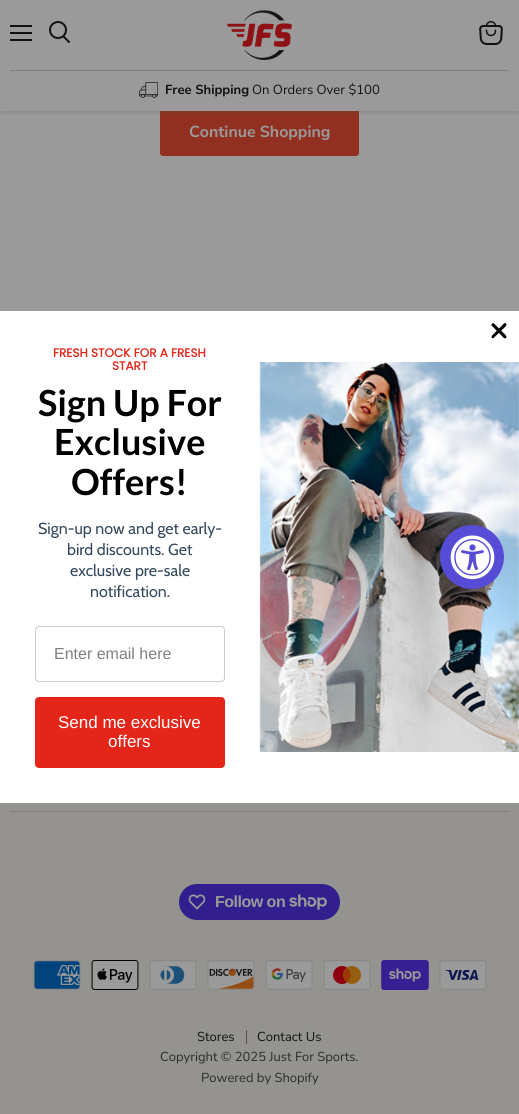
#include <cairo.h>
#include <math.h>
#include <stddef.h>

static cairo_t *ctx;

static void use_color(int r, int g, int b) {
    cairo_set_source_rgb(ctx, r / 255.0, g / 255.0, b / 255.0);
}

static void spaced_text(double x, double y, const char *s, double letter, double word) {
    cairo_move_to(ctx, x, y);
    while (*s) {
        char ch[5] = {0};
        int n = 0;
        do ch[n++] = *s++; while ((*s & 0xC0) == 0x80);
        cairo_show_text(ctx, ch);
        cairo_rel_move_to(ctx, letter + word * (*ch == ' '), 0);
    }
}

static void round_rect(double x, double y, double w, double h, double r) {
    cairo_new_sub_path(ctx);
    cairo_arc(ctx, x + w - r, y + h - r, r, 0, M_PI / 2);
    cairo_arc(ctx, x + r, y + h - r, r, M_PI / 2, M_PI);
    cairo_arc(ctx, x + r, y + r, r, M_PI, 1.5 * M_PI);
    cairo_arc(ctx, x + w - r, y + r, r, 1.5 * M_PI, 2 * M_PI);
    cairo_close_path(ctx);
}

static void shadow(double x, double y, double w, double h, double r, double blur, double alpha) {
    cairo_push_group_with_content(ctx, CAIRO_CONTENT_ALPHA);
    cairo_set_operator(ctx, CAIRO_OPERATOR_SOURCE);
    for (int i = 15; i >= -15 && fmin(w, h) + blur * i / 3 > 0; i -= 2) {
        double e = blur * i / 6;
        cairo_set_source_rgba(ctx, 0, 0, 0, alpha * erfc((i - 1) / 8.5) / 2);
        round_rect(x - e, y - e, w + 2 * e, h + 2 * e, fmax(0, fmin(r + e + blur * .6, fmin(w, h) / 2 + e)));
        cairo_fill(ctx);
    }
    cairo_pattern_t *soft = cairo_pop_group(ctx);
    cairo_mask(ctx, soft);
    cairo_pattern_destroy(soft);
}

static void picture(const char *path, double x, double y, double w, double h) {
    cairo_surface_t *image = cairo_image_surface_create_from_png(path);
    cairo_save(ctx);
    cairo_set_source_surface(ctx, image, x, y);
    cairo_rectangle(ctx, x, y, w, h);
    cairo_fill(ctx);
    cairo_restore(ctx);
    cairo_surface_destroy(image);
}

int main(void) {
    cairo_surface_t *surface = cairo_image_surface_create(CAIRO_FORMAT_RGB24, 519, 1114);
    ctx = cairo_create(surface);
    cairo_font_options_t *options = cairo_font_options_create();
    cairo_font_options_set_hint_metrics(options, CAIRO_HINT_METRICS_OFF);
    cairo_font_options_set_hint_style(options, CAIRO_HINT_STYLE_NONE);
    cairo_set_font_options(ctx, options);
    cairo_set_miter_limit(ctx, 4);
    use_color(154, 154, 154);
    cairo_paint(ctx);
    use_color(145, 48, 32);
    round_rect(160.5, 108.5, 198, 47, 2.5);
    cairo_fill_preserve(ctx);
    cairo_set_line_width(ctx, 1);
    cairo_stroke(ctx);
    use_color(77, 77, 77);
    shadow(0, 1, 519, 111, 0, 2, 0.25);
    use_color(154, 154, 154);
    cairo_rectangle(ctx, 0, 0, 519, 111);
    cairo_fill(ctx);
    use_color(17, 17, 17);
    cairo_rectangle(ctx, 10, 25, 22, 2);
    cairo_fill(ctx);
    cairo_rectangle(ctx, 10, 32, 22, 2);
    cairo_fill(ctx);
    cairo_rectangle(ctx, 10, 39, 22, 2);
    cairo_fill(ctx);
    cairo_new_path(ctx);
    cairo_move_to(ctx, 69, 42);
    cairo_line_to(ctx, 63.5, 36.5);
    cairo_set_line_width(ctx, 2);
    cairo_set_line_cap(ctx, CAIRO_LINE_CAP_ROUND);
    cairo_stroke(ctx);
    cairo_arc(ctx, 58, 30, 8, 0, 2 * M_PI);
    cairo_set_line_cap(ctx, CAIRO_LINE_CAP_BUTT);
    cairo_stroke(ctx);
    picture("img1.png", 479, 21, 24, 24);
    picture("img2.png", 227, 10, 65, 50);
    use_color(127, 127, 127);
    cairo_rectangle(ctx, 10, 70, 499, 1);
    cairo_fill(ctx);
    picture("img3.png", 139, 82, 19, 16);
    cairo_select_font_face(ctx, "Nunito Sans", CAIRO_FONT_SLANT_NORMAL, CAIRO_FONT_WEIGHT_BOLD);
    cairo_set_font_size(ctx, 13.1);
    use_color(17, 17, 17);
    cairo_move_to(ctx, 165, 94);
    cairo_show_text(ctx, "Free Shipping");
    cairo_select_font_face(ctx, "Nunito Sans", CAIRO_FONT_SLANT_NORMAL, CAIRO_FONT_WEIGHT_NORMAL);
    cairo_move_to(ctx, 252, 94);
    cairo_show_text(ctx, "On Orders Over $100");
    cairo_select_font_face(ctx, "Nunito Sans", CAIRO_FONT_SLANT_NORMAL, CAIRO_FONT_WEIGHT_BOLD);
    cairo_set_font_size(ctx, 15.9);
    use_color(154, 154, 154);
    cairo_move_to(ctx, 189, 137);
    cairo_show_text(ctx, "Continue Shopping");
    use_color(255, 255, 255);
    cairo_rectangle(ctx, 0, 311, 519, 492);
    cairo_fill(ctx);
    use_color(0, 0, 0);
    cairo_new_path(ctx);
    cairo_move_to(ctx, 494, 323.5);
    cairo_line_to(ctx, 504, 333.5);
    cairo_curve_to(ctx, 505, 334.5, 507.5, 336.5, 506, 338);
    cairo_curve_to(ctx, 504.5, 339.5, 502.5, 336.5, 502, 336);
    cairo_line_to(ctx, 491.5, 325.5);
    cairo_curve_to(ctx, 491, 324, 493, 322.5, 494, 323.5);
    cairo_close_path(ctx);
    cairo_fill(ctx);
    cairo_new_path(ctx);
    cairo_move_to(ctx, 492, 335.5);
    cairo_line_to(ctx, 502, 325.5);
    cairo_curve_to(ctx, 502.5, 325, 504.5, 322, 506, 323.5);
    cairo_curve_to(ctx, 507.5, 325, 505, 327, 504, 328);
    cairo_line_to(ctx, 493.5, 338);
    cairo_curve_to(ctx, 492, 339, 491, 337, 492, 335.5);
    cairo_close_path(ctx);
    cairo_fill(ctx);
    cairo_select_font_face(ctx, "Poppins", CAIRO_FONT_SLANT_NORMAL, CAIRO_FONT_WEIGHT_BOLD);
    cairo_set_font_size(ctx, 12);
    use_color(227, 38, 25);
    cairo_move_to(ctx, 53, 357);
    cairo_show_text(ctx, "FRESH STOCK FOR A FRESH");
    cairo_move_to(ctx, 112, 370);
    cairo_show_text(ctx, "START");
    cairo_select_font_face(ctx, "Lato", CAIRO_FONT_SLANT_NORMAL, CAIRO_FONT_WEIGHT_BOLD);
    cairo_set_font_size(ctx, 36);
    use_color(0, 0, 0);
    cairo_move_to(ctx, 38, 416);
    cairo_show_text(ctx, "Sign Up For");
    cairo_move_to(ctx, 54, 455);
    cairo_show_text(ctx, "Exclusive");
    cairo_move_to(ctx, 71, 495);
    cairo_show_text(ctx, "Offers!");
    cairo_select_font_face(ctx, "Cabin", CAIRO_FONT_SLANT_NORMAL, CAIRO_FONT_WEIGHT_NORMAL);
    cairo_set_font_size(ctx, 16);
    use_color(52, 73, 94);
    cairo_move_to(ctx, 38, 534);
    cairo_show_text(ctx, "Sign-up now and get early-");
    cairo_move_to(ctx, 67, 555);
    cairo_show_text(ctx, "bird discounts. Get");
    cairo_move_to(ctx, 70, 576);
    cairo_show_text(ctx, "exclusive pre-sale");
    cairo_move_to(ctx, 90, 597);
    cairo_show_text(ctx, "notification.");
    round_rect(35.5, 626.5, 189, 55, 3.5);
    use_color(204, 204, 204);
    cairo_set_line_width(ctx, 1);
    cairo_stroke(ctx);
    cairo_select_font_face(ctx, "Liberation Sans", CAIRO_FONT_SLANT_NORMAL, CAIRO_FONT_WEIGHT_NORMAL);
    use_color(128, 128, 128);
    cairo_move_to(ctx, 54, 659);
    cairo_show_text(ctx, "Enter email here");
    use_color(227, 38, 25);
    round_rect(35, 697, 190, 71, 4);
    cairo_fill(ctx);
    cairo_set_font_size(ctx, 17);
    use_color(255, 255, 255);
    cairo_move_to(ctx, 58, 728);
    cairo_show_text(ctx, "Send me exclusive");
    cairo_move_to(ctx, 108, 747);
    cairo_show_text(ctx, "offers");
    picture("img4.png", 259, 362, 260, 390);
    use_color(87, 76, 213);
    cairo_arc(ctx, 472, 557, 32, 0, 2 * M_PI);
    cairo_fill(ctx);
    picture("img5.png", 450, 535, 45, 45);
    use_color(148, 147, 143);
    cairo_rectangle(ctx, 0, 803, 519, 311);
    cairo_fill(ctx);
    use_color(129, 127, 124);
    cairo_rectangle(ctx, 10, 811, 499, 1);
    cairo_fill(ctx);
    use_color(50, 31, 141);
    round_rect(179, 884, 161, 36, 18);
    cairo_fill(ctx);
    picture("img6.png", 188, 894, 18, 16);
    cairo_select_font_face(ctx, "Liberation Sans", CAIRO_FONT_SLANT_NORMAL, CAIRO_FONT_WEIGHT_BOLD);
    cairo_set_font_size(ctx, 16);
    use_color(154, 154, 154);
    spaced_text(215, 907, "Follow on", -0.5, 0);
    picture("img7.png", 289, 894, 38, 16);
    picture("img8.png", 33, 960, 48, 30);
    picture("img9.png", 91, 960, 48, 30);
    picture("img10.png", 149, 960, 48, 30);
    picture("img11.png", 207, 960, 48, 30);
    picture("img12.png", 265, 960, 48, 30);
    picture("img13.png", 323, 960, 48, 30);
    picture("img14.png", 381, 960, 48, 30);
    picture("img15.png", 439, 960, 48, 30);
    use_color(83, 82, 80);
    cairo_rectangle(ctx, 246, 1030, 1, 14);
    cairo_fill(ctx);
    cairo_select_font_face(ctx, "Nunito Sans", CAIRO_FONT_SLANT_NORMAL, CAIRO_FONT_WEIGHT_NORMAL);
    cairo_set_font_size(ctx, 13);
    use_color(17, 17, 17);
    cairo_move_to(ctx, 197, 1041);
    cairo_show_text(ctx, "Stores");
    cairo_move_to(ctx, 257, 1041);
    cairo_show_text(ctx, "Contact Us");
    use_color(43, 43, 43);
    cairo_move_to(ctx, 160, 1061);
    cairo_show_text(ctx, "Copyright © 2025 Just For Sports.");
    cairo_move_to(ctx, 201, 1082);
    cairo_show_text(ctx, "Powered by Shopify");
    cairo_surface_write_to_png(surface, "result.png");
    cairo_font_options_destroy(options);
    cairo_destroy(ctx);
    cairo_surface_destroy(surface);
    return 0;
}
